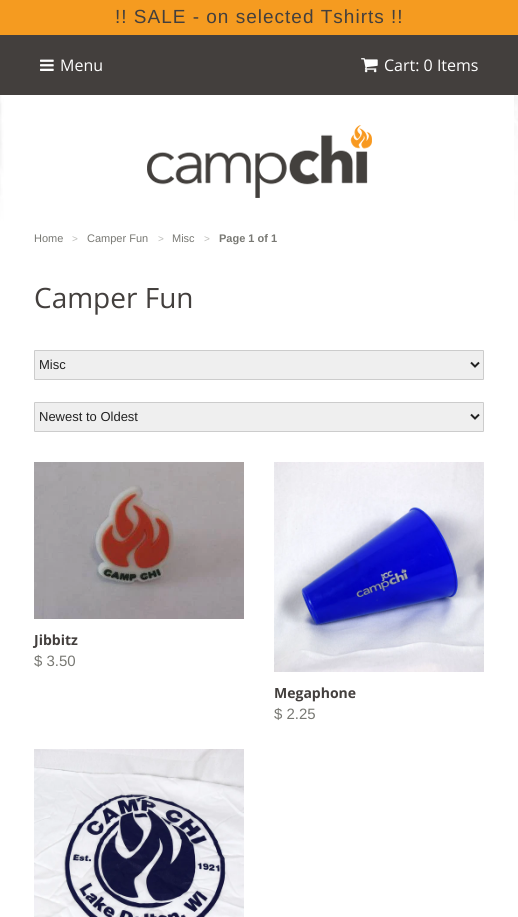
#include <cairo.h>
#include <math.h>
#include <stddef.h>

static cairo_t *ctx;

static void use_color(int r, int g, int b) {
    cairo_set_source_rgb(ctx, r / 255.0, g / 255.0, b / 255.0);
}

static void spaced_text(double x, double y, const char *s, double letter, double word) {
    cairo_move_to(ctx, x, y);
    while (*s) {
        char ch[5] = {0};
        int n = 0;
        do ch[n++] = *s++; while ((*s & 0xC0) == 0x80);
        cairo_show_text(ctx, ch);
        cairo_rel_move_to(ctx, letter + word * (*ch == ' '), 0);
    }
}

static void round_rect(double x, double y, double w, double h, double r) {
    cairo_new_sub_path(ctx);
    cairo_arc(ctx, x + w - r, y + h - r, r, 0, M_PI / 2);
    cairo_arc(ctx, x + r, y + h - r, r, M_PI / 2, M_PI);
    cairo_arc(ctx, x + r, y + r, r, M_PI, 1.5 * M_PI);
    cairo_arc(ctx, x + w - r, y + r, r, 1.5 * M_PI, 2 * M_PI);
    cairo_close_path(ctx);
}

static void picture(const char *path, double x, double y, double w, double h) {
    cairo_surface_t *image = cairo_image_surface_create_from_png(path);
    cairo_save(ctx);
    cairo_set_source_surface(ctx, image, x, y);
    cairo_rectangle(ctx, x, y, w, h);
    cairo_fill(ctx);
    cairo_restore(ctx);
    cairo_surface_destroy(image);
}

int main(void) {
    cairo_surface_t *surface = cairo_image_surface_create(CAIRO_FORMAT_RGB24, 518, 917);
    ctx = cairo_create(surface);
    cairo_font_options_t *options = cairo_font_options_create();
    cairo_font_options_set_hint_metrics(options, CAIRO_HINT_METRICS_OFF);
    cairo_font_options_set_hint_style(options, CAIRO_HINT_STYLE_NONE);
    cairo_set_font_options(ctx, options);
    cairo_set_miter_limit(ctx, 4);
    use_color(255, 255, 255);
    cairo_paint(ctx);
    picture("img1.png", 0, 95, 518, 126);
    use_color(245, 155, 32);
    cairo_rectangle(ctx, 0, 0, 518, 35);
    cairo_fill(ctx);
    cairo_select_font_face(ctx, "Liberation Sans", CAIRO_FONT_SLANT_NORMAL, CAIRO_FONT_WEIGHT_NORMAL);
    cairo_set_font_size(ctx, 19);
    use_color(67, 63, 61);
    spaced_text(115, 23, "!! SALE - on selected Tshirts !!", 1, 0);
    cairo_rectangle(ctx, 0, 35, 518, 60);
    cairo_fill(ctx);
    picture("img2.png", 40, 59, 14, 12);
    cairo_select_font_face(ctx, "Open Sans", CAIRO_FONT_SLANT_NORMAL, CAIRO_FONT_WEIGHT_NORMAL);
    cairo_set_font_size(ctx, 16);
    use_color(255, 255, 255);
    cairo_move_to(ctx, 60, 71);
    cairo_show_text(ctx, "Menu");
    picture("img3.png", 361, 58, 17, 15);
    cairo_move_to(ctx, 384, 71);
    cairo_show_text(ctx, "Cart: 0 Items");
    cairo_rectangle(ctx, 4, 95, 510, 126);
    cairo_fill(ctx);
    picture("img4.png", 147, 125, 225, 73);
    cairo_select_font_face(ctx, "Liberation Sans", CAIRO_FONT_SLANT_NORMAL, CAIRO_FONT_WEIGHT_NORMAL);
    cairo_set_font_size(ctx, 11);
    use_color(120, 120, 115);
    cairo_move_to(ctx, 34, 242);
    cairo_show_text(ctx, "Home");
    cairo_set_font_size(ctx, 10);
    use_color(188, 188, 185);
    cairo_move_to(ctx, 72, 242);
    cairo_show_text(ctx, ">");
    cairo_set_font_size(ctx, 11);
    use_color(120, 120, 115);
    cairo_move_to(ctx, 87, 242);
    cairo_show_text(ctx, "Camper Fun");
    cairo_set_font_size(ctx, 10);
    use_color(188, 188, 185);
    cairo_move_to(ctx, 158, 242);
    cairo_show_text(ctx, ">");
    cairo_set_font_size(ctx, 11);
    use_color(120, 120, 115);
    cairo_move_to(ctx, 172, 242);
    cairo_show_text(ctx, "Misc");
    cairo_set_font_size(ctx, 10);
    use_color(188, 188, 185);
    cairo_move_to(ctx, 204, 242);
    cairo_show_text(ctx, ">");
    cairo_select_font_face(ctx, "Liberation Sans", CAIRO_FONT_SLANT_NORMAL, CAIRO_FONT_WEIGHT_BOLD);
    cairo_set_font_size(ctx, 11);
    use_color(120, 120, 115);
    cairo_move_to(ctx, 219, 242);
    cairo_show_text(ctx, "Page 1 of 1");
    cairo_select_font_face(ctx, "Open Sans", CAIRO_FONT_SLANT_NORMAL, CAIRO_FONT_WEIGHT_NORMAL);
    cairo_set_font_size(ctx, 28);
    use_color(67, 63, 61);
    cairo_move_to(ctx, 34, 308);
    cairo_show_text(ctx, "Camper Fun");
    use_color(239, 239, 239);
    round_rect(34.5, 350.5, 449, 29, 0.5);
    cairo_fill_preserve(ctx);
    use_color(204, 204, 204);
    cairo_set_line_width(ctx, 1);
    cairo_stroke(ctx);
    cairo_new_path(ctx);
    cairo_move_to(ctx, 471, 362.5);
    cairo_line_to(ctx, 475, 366.5);
    cairo_line_to(ctx, 479, 362.5);
    use_color(34, 34, 34);
    cairo_set_line_width(ctx, 2);
    cairo_stroke(ctx);
    cairo_select_font_face(ctx, "Liberation Sans", CAIRO_FONT_SLANT_NORMAL, CAIRO_FONT_WEIGHT_NORMAL);
    cairo_set_font_size(ctx, 13);
    cairo_move_to(ctx, 39, 369);
    cairo_show_text(ctx, "Misc");
    use_color(239, 239, 239);
    round_rect(34.5, 402.5, 449, 29, 0.5);
    cairo_fill_preserve(ctx);
    use_color(204, 204, 204);
    cairo_set_line_width(ctx, 1);
    cairo_stroke(ctx);
    cairo_new_path(ctx);
    cairo_move_to(ctx, 471, 414.5);
    cairo_line_to(ctx, 475, 418.5);
    cairo_line_to(ctx, 479, 414.5);
    use_color(34, 34, 34);
    cairo_set_line_width(ctx, 2);
    cairo_stroke(ctx);
    cairo_move_to(ctx, 39, 421);
    cairo_show_text(ctx, "Newest to Oldest");
    picture("img5.png", 34, 462, 210, 157);
    cairo_select_font_face(ctx, "Open Sans", CAIRO_FONT_SLANT_NORMAL, CAIRO_FONT_WEIGHT_BOLD);
    cairo_set_font_size(ctx, 14);
    use_color(67, 63, 61);
    cairo_move_to(ctx, 34, 645);
    cairo_show_text(ctx, "Jibbitz");
    cairo_select_font_face(ctx, "Liberation Sans", CAIRO_FONT_SLANT_NORMAL, CAIRO_FONT_WEIGHT_NORMAL);
    cairo_set_font_size(ctx, 15);
    use_color(120, 120, 115);
    cairo_move_to(ctx, 34, 666);
    cairo_show_text(ctx, "$ 3.50");
    picture("img6.png", 274, 462, 210, 210);
    cairo_select_font_face(ctx, "Open Sans", CAIRO_FONT_SLANT_NORMAL, CAIRO_FONT_WEIGHT_BOLD);
    cairo_set_font_size(ctx, 14);
    use_color(67, 63, 61);
    cairo_move_to(ctx, 274, 698);
    cairo_show_text(ctx, "Megaphone");
    cairo_select_font_face(ctx, "Liberation Sans", CAIRO_FONT_SLANT_NORMAL, CAIRO_FONT_WEIGHT_NORMAL);
    cairo_set_font_size(ctx, 15);
    use_color(120, 120, 115);
    cairo_move_to(ctx, 274, 719);
    cairo_show_text(ctx, "$ 2.25");
    picture("img7.png", 34, 749, 210, 168);
    cairo_surface_write_to_png(surface, "result.png");
    cairo_font_options_destroy(options);
    cairo_destroy(ctx);
    cairo_surface_destroy(surface);
    return 0;
}
